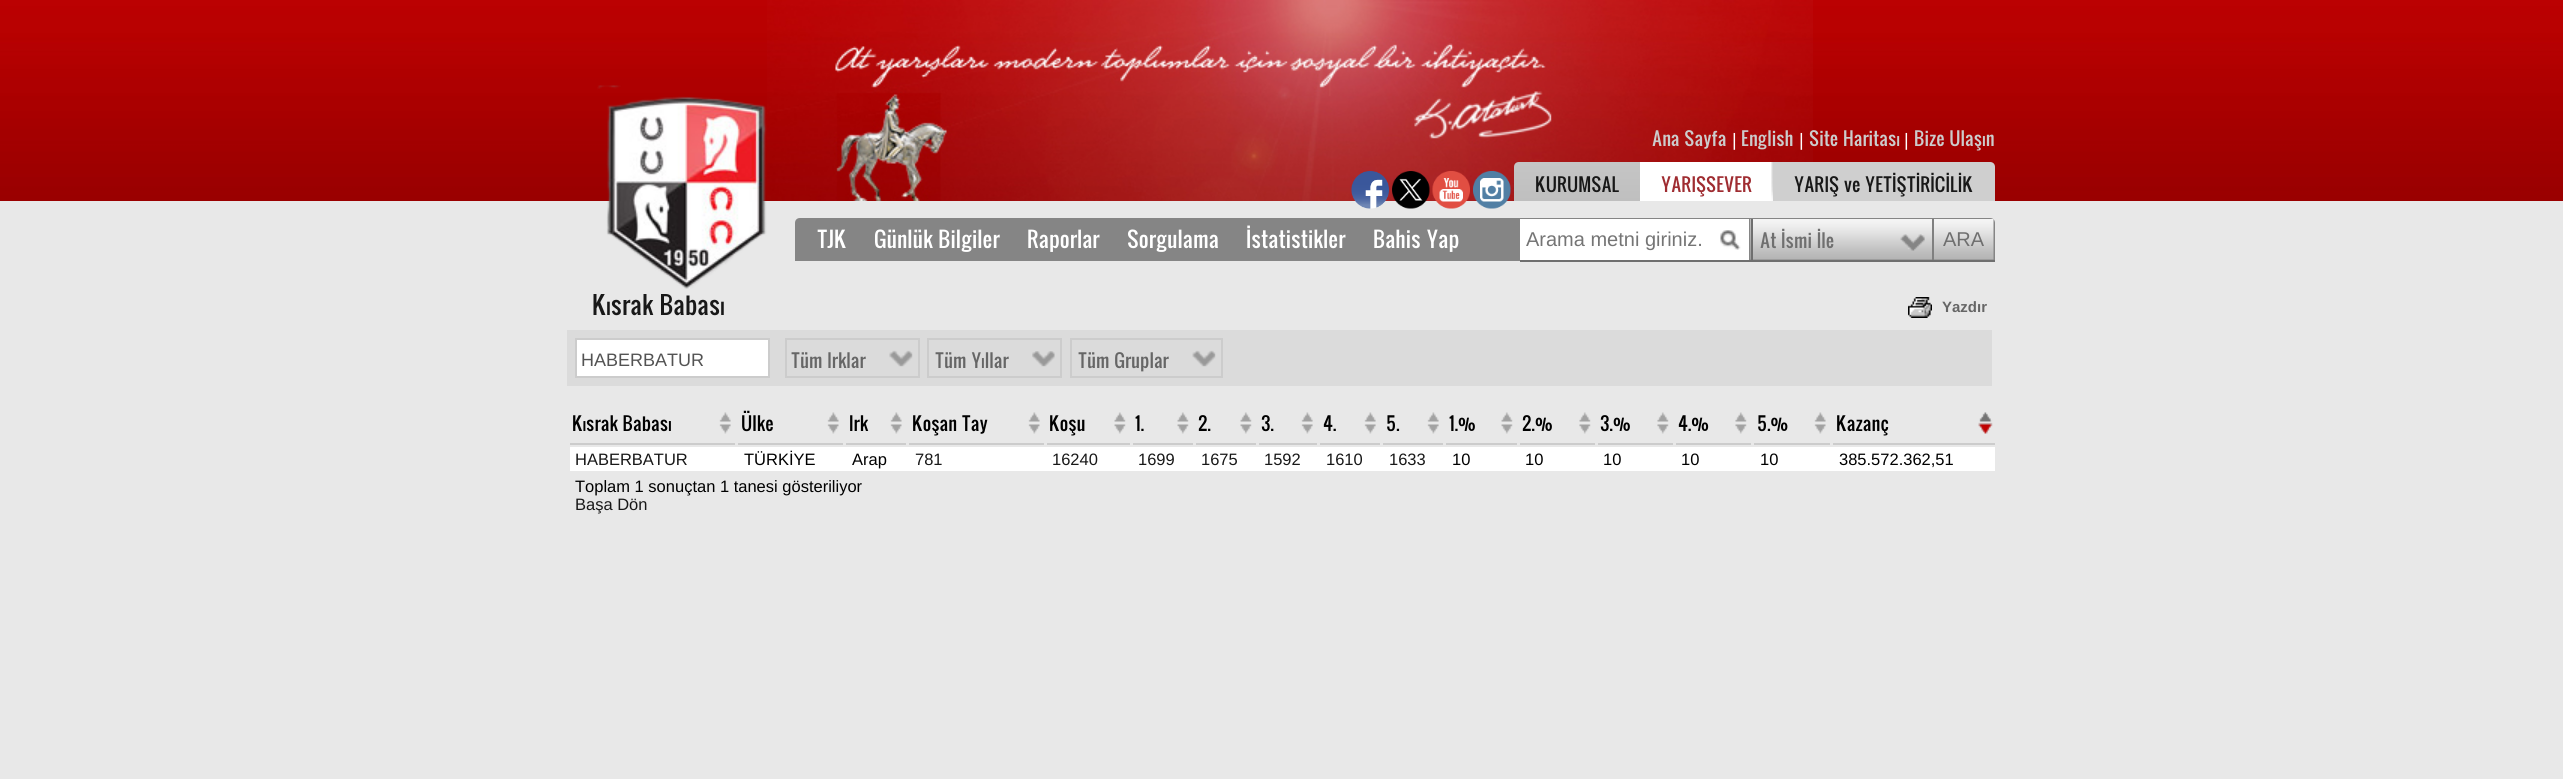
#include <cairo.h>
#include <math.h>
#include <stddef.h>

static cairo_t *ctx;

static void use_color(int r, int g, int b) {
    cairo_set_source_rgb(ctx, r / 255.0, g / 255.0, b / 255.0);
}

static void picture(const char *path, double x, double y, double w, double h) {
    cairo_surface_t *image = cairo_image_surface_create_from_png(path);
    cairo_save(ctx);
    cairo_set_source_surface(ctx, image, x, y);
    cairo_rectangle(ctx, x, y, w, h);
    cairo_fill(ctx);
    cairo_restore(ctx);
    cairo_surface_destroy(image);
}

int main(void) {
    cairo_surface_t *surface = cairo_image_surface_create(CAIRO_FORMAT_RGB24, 2563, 779);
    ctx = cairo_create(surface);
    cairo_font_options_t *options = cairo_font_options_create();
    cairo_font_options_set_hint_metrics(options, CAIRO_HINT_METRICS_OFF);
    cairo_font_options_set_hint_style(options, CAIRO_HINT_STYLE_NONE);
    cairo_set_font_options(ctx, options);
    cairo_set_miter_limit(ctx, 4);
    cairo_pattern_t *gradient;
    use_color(232, 232, 232);
    cairo_paint(ctx);
    picture("img1.png", 0, 0, 2563, 201);
    picture("img2.png", 767, 0, 1046, 201);
    picture("img3.png", 597, 85, 170, 204);
    cairo_select_font_face(ctx, "Oswald", CAIRO_FONT_SLANT_NORMAL, CAIRO_FONT_WEIGHT_NORMAL);
    cairo_set_font_size(ctx, 18);
    use_color(204, 204, 204);
    cairo_move_to(ctx, 1652, 146);
    cairo_show_text(ctx, "Ana Sayfa");
    cairo_select_font_face(ctx, "Liberation Sans", CAIRO_FONT_SLANT_NORMAL, CAIRO_FONT_WEIGHT_NORMAL);
    use_color(255, 255, 255);
    cairo_move_to(ctx, 1732, 146);
    cairo_show_text(ctx, "|");
    cairo_select_font_face(ctx, "Oswald", CAIRO_FONT_SLANT_NORMAL, CAIRO_FONT_WEIGHT_NORMAL);
    use_color(204, 204, 204);
    cairo_move_to(ctx, 1741, 146);
    cairo_show_text(ctx, "English");
    cairo_select_font_face(ctx, "Liberation Sans", CAIRO_FONT_SLANT_NORMAL, CAIRO_FONT_WEIGHT_NORMAL);
    use_color(255, 255, 255);
    cairo_move_to(ctx, 1799, 146);
    cairo_show_text(ctx, "|");
    cairo_select_font_face(ctx, "Oswald", CAIRO_FONT_SLANT_NORMAL, CAIRO_FONT_WEIGHT_NORMAL);
    use_color(204, 204, 204);
    cairo_move_to(ctx, 1809, 146);
    cairo_show_text(ctx, "Site Haritası");
    cairo_select_font_face(ctx, "Liberation Sans", CAIRO_FONT_SLANT_NORMAL, CAIRO_FONT_WEIGHT_NORMAL);
    use_color(255, 255, 255);
    cairo_move_to(ctx, 1904, 146);
    cairo_show_text(ctx, "|");
    cairo_select_font_face(ctx, "Oswald", CAIRO_FONT_SLANT_NORMAL, CAIRO_FONT_WEIGHT_NORMAL);
    use_color(204, 204, 204);
    cairo_move_to(ctx, 1914, 146);
    cairo_show_text(ctx, "Bize Ulaşın");
    picture("img4.png", 1351, 171, 38, 38);
    picture("img5.png", 1392, 171, 38, 38);
    picture("img6.png", 1432, 171, 38, 38);
    picture("img7.png", 1473, 171, 38, 38);
    gradient = cairo_pattern_create_linear(1514, 162, 1514, 201);
    cairo_pattern_add_color_stop_rgba(gradient, 0, 0.773, 0.773, 0.773, 1);
    cairo_pattern_add_color_stop_rgba(gradient, 1, 0.749, 0.749, 0.749, 1);
    cairo_set_source(ctx, gradient);
    cairo_pattern_destroy(gradient);
    cairo_new_path(ctx);
    cairo_move_to(ctx, 1519, 162);
    cairo_line_to(ctx, 1640, 162);
    cairo_line_to(ctx, 1640, 201);
    cairo_line_to(ctx, 1514, 201);
    cairo_line_to(ctx, 1514, 167);
    cairo_curve_to(ctx, 1514, 164, 1516, 162, 1519, 162);
    cairo_close_path(ctx);
    cairo_fill(ctx);
    use_color(24, 24, 24);
    cairo_move_to(ctx, 1535, 192);
    cairo_show_text(ctx, "KURUMSAL");
    use_color(255, 255, 255);
    cairo_rectangle(ctx, 1640, 162, 132, 39);
    cairo_fill(ctx);
    use_color(159, 44, 49);
    cairo_move_to(ctx, 1661, 192);
    cairo_show_text(ctx, "YARIŞSEVER");
    picture("img8.png", 1771, 162, 2, 39);
    use_color(207, 207, 207);
    cairo_new_path(ctx);
    cairo_move_to(ctx, 1773, 162);
    cairo_line_to(ctx, 1990, 162);
    cairo_curve_to(ctx, 1993, 162, 1995, 164, 1995, 167);
    cairo_line_to(ctx, 1995, 201);
    cairo_line_to(ctx, 1773, 201);
    cairo_close_path(ctx);
    cairo_fill(ctx);
    use_color(24, 24, 24);
    cairo_move_to(ctx, 1794, 192);
    cairo_show_text(ctx, "YARIŞ ve YETİŞTİRİCİLİK");
    use_color(133, 133, 133);
    cairo_new_path(ctx);
    cairo_move_to(ctx, 800, 218);
    cairo_line_to(ctx, 1990, 218);
    cairo_curve_to(ctx, 1993, 218, 1995, 220, 1995, 223);
    cairo_line_to(ctx, 1995, 261);
    cairo_line_to(ctx, 795, 261);
    cairo_line_to(ctx, 795, 223);
    cairo_curve_to(ctx, 795, 220, 797, 218, 800, 218);
    cairo_close_path(ctx);
    cairo_fill(ctx);
    cairo_set_font_size(ctx, 21);
    use_color(255, 255, 255);
    cairo_move_to(ctx, 817, 248);
    cairo_show_text(ctx, "TJK");
    cairo_move_to(ctx, 874, 248);
    cairo_show_text(ctx, "Günlük Bilgiler");
    cairo_move_to(ctx, 1027, 248);
    cairo_show_text(ctx, "Raporlar");
    cairo_move_to(ctx, 1127, 248);
    cairo_show_text(ctx, "Sorgulama");
    cairo_move_to(ctx, 1246, 248);
    cairo_show_text(ctx, "İstatistikler");
    cairo_move_to(ctx, 1373, 248);
    cairo_show_text(ctx, "Bahis Yap");
    use_color(111, 111, 111);
    cairo_rectangle(ctx, 1520, 260, 475, 2);
    cairo_fill(ctx);
    use_color(255, 255, 255);
    cairo_rectangle(ctx, 1520, 219, 229, 41);
    cairo_fill(ctx);
    picture("img9.png", 1720, 230, 21, 20);
    cairo_select_font_face(ctx, "Liberation Sans", CAIRO_FONT_SLANT_NORMAL, CAIRO_FONT_WEIGHT_NORMAL);
    cairo_set_font_size(ctx, 20);
    use_color(117, 117, 117);
    cairo_move_to(ctx, 1526, 246);
    cairo_show_text(ctx, "Arama metni giriniz.");
    picture("img10.png", 1750, 219, 182, 41);
    use_color(111, 111, 111);
    cairo_rectangle(ctx, 1751, 219, 2, 41);
    cairo_fill(ctx);
    picture("img11.png", 1900, 234, 25, 17);
    cairo_select_font_face(ctx, "Oswald", CAIRO_FONT_SLANT_NORMAL, CAIRO_FONT_WEIGHT_NORMAL);
    cairo_set_font_size(ctx, 18);
    cairo_move_to(ctx, 1760, 248);
    cairo_show_text(ctx, "At İsmi İle");
    picture("img12.png", 1934, 219, 60, 41);
    use_color(128, 128, 128);
    cairo_rectangle(ctx, 1932, 219, 2, 41);
    cairo_fill(ctx);
    cairo_select_font_face(ctx, "Liberation Sans", CAIRO_FONT_SLANT_NORMAL, CAIRO_FONT_WEIGHT_NORMAL);
    cairo_set_font_size(ctx, 20);
    use_color(111, 111, 111);
    cairo_move_to(ctx, 1943, 246);
    cairo_show_text(ctx, "ARA");
    cairo_select_font_face(ctx, "Oswald", CAIRO_FONT_SLANT_NORMAL, CAIRO_FONT_WEIGHT_NORMAL);
    cairo_set_font_size(ctx, 24);
    use_color(24, 24, 24);
    cairo_move_to(ctx, 592, 315);
    cairo_show_text(ctx, "Kısrak Babası");
    picture("img13.png", 1908, 297, 24, 21);
    cairo_select_font_face(ctx, "Liberation Sans", CAIRO_FONT_SLANT_NORMAL, CAIRO_FONT_WEIGHT_BOLD);
    cairo_set_font_size(ctx, 15);
    use_color(102, 102, 102);
    cairo_move_to(ctx, 1942, 312);
    cairo_show_text(ctx, "Yazdır");
    use_color(219, 219, 219);
    cairo_rectangle(ctx, 567, 330, 1425, 56);
    cairo_fill(ctx);
    use_color(255, 255, 255);
    cairo_rectangle(ctx, 576, 339, 193, 38);
    cairo_fill_preserve(ctx);
    use_color(204, 204, 204);
    cairo_stroke(ctx);
    cairo_select_font_face(ctx, "Liberation Sans", CAIRO_FONT_SLANT_NORMAL, CAIRO_FONT_WEIGHT_NORMAL);
    cairo_set_font_size(ctx, 18);
    use_color(83, 83, 83);
    cairo_move_to(ctx, 581, 366);
    cairo_show_text(ctx, "HABERBATUR");
    cairo_rectangle(ctx, 786, 339, 133, 38);
    use_color(204, 204, 204);
    cairo_stroke(ctx);
    picture("img14.png", 889, 350, 24, 17);
    cairo_select_font_face(ctx, "Oswald", CAIRO_FONT_SLANT_NORMAL, CAIRO_FONT_WEIGHT_NORMAL);
    use_color(102, 102, 102);
    cairo_move_to(ctx, 791, 368);
    cairo_show_text(ctx, "Tüm Irklar");
    cairo_rectangle(ctx, 928, 339, 133, 38);
    use_color(204, 204, 204);
    cairo_stroke(ctx);
    picture("img15.png", 1032, 351, 23, 16);
    use_color(102, 102, 102);
    cairo_move_to(ctx, 935, 368);
    cairo_show_text(ctx, "Tüm Yıllar");
    cairo_rectangle(ctx, 1071, 339, 151, 38);
    use_color(204, 204, 204);
    cairo_stroke(ctx);
    picture("img16.png", 1192, 350, 24, 17);
    use_color(102, 102, 102);
    cairo_move_to(ctx, 1078, 368);
    cairo_show_text(ctx, "Tüm Gruplar");
    use_color(204, 204, 204);
    cairo_rectangle(ctx, 570, 443, 165, 2);
    cairo_fill(ctx);
    picture("img17.png", 719, 412, 12, 22);
    use_color(0, 0, 0);
    cairo_move_to(ctx, 572, 431);
    cairo_show_text(ctx, "Kısrak Babası");
    use_color(204, 204, 204);
    cairo_rectangle(ctx, 738, 443, 105, 2);
    cairo_fill(ctx);
    picture("img18.png", 827, 412, 12, 22);
    use_color(0, 0, 0);
    cairo_move_to(ctx, 741, 431);
    cairo_show_text(ctx, "Ülke");
    use_color(204, 204, 204);
    cairo_rectangle(ctx, 846, 443, 60, 2);
    cairo_fill(ctx);
    picture("img18.png", 890, 412, 12, 22);
    use_color(0, 0, 0);
    cairo_move_to(ctx, 849, 431);
    cairo_show_text(ctx, "Irk");
    use_color(204, 204, 204);
    cairo_rectangle(ctx, 909, 443, 135, 2);
    cairo_fill(ctx);
    picture("img18.png", 1028, 412, 12, 22);
    use_color(0, 0, 0);
    cairo_move_to(ctx, 912, 431);
    cairo_show_text(ctx, "Koşan Tay");
    use_color(204, 204, 204);
    cairo_rectangle(ctx, 1047, 443, 83, 2);
    cairo_fill(ctx);
    picture("img19.png", 1114, 412, 12, 22);
    use_color(0, 0, 0);
    cairo_move_to(ctx, 1049, 431);
    cairo_show_text(ctx, "Koşu");
    use_color(204, 204, 204);
    cairo_rectangle(ctx, 1133, 443, 60, 2);
    cairo_fill(ctx);
    picture("img19.png", 1177, 412, 12, 22);
    use_color(0, 0, 0);
    cairo_move_to(ctx, 1135, 431);
    cairo_show_text(ctx, "1.");
    use_color(204, 204, 204);
    cairo_rectangle(ctx, 1196, 443, 60, 2);
    cairo_fill(ctx);
    picture("img19.png", 1240, 412, 12, 22);
    use_color(0, 0, 0);
    cairo_move_to(ctx, 1198, 431);
    cairo_show_text(ctx, "2.");
    use_color(204, 204, 204);
    cairo_rectangle(ctx, 1259, 443, 58, 2);
    cairo_fill(ctx);
    picture("img17.png", 1301, 412, 12, 22);
    use_color(0, 0, 0);
    cairo_move_to(ctx, 1261, 431);
    cairo_show_text(ctx, "3.");
    use_color(204, 204, 204);
    cairo_rectangle(ctx, 1320, 443, 60, 2);
    cairo_fill(ctx);
    picture("img17.png", 1364, 412, 12, 22);
    use_color(0, 0, 0);
    cairo_move_to(ctx, 1323, 431);
    cairo_show_text(ctx, "4.");
    use_color(204, 204, 204);
    cairo_rectangle(ctx, 1383, 443, 60, 2);
    cairo_fill(ctx);
    picture("img17.png", 1427, 412, 12, 22);
    use_color(0, 0, 0);
    cairo_move_to(ctx, 1386, 431);
    cairo_show_text(ctx, "5.");
    use_color(204, 204, 204);
    cairo_rectangle(ctx, 1446, 443, 71, 2);
    cairo_fill(ctx);
    picture("img19.png", 1501, 412, 12, 22);
    use_color(0, 0, 0);
    cairo_move_to(ctx, 1449, 431);
    cairo_show_text(ctx, "1.%");
    use_color(204, 204, 204);
    cairo_rectangle(ctx, 1520, 443, 75, 2);
    cairo_fill(ctx);
    picture("img20.png", 1579, 412, 12, 22);
    use_color(0, 0, 0);
    cairo_move_to(ctx, 1522, 431);
    cairo_show_text(ctx, "2.%");
    use_color(204, 204, 204);
    cairo_rectangle(ctx, 1598, 443, 75, 2);
    cairo_fill(ctx);
    picture("img20.png", 1657, 412, 12, 22);
    use_color(0, 0, 0);
    cairo_move_to(ctx, 1600, 431);
    cairo_show_text(ctx, "3.%");
    use_color(204, 204, 204);
    cairo_rectangle(ctx, 1676, 443, 75, 2);
    cairo_fill(ctx);
    picture("img20.png", 1735, 412, 12, 22);
    use_color(0, 0, 0);
    cairo_move_to(ctx, 1678, 431);
    cairo_show_text(ctx, "4.%");
    use_color(204, 204, 204);
    cairo_rectangle(ctx, 1754, 443, 76, 2);
    cairo_fill(ctx);
    picture("img18.png", 1814, 412, 12, 22);
    use_color(0, 0, 0);
    cairo_move_to(ctx, 1757, 431);
    cairo_show_text(ctx, "5.%");
    use_color(204, 204, 204);
    cairo_rectangle(ctx, 1833, 443, 162, 2);
    cairo_fill(ctx);
    picture("img21.png", 1978, 412, 15, 22);
    use_color(0, 0, 0);
    cairo_move_to(ctx, 1836, 431);
    cairo_show_text(ctx, "Kazanç");
    use_color(255, 255, 255);
    cairo_rectangle(ctx, 570, 447, 1425, 24);
    cairo_fill(ctx);
    cairo_select_font_face(ctx, "Liberation Sans", CAIRO_FONT_SLANT_NORMAL, CAIRO_FONT_WEIGHT_NORMAL);
    cairo_set_font_size(ctx, 16.5);
    use_color(24, 24, 24);
    cairo_move_to(ctx, 575, 465);
    cairo_show_text(ctx, "HABERBATUR");
    use_color(0, 0, 0);
    cairo_move_to(ctx, 744, 465);
    cairo_show_text(ctx, "TÜRKİYE");
    cairo_move_to(ctx, 852, 465);
    cairo_show_text(ctx, "Arap");
    use_color(24, 24, 24);
    cairo_move_to(ctx, 915, 465);
    cairo_show_text(ctx, "781");
    cairo_move_to(ctx, 1052, 465);
    cairo_show_text(ctx, "16240");
    cairo_move_to(ctx, 1138, 465);
    cairo_show_text(ctx, "1699");
    cairo_move_to(ctx, 1201, 465);
    cairo_show_text(ctx, "1675");
    cairo_move_to(ctx, 1264, 465);
    cairo_show_text(ctx, "1592");
    cairo_move_to(ctx, 1326, 465);
    cairo_show_text(ctx, "1610");
    cairo_move_to(ctx, 1389, 465);
    cairo_show_text(ctx, "1633");
    use_color(0, 0, 0);
    cairo_move_to(ctx, 1452, 465);
    cairo_show_text(ctx, "10");
    cairo_move_to(ctx, 1525, 465);
    cairo_show_text(ctx, "10");
    cairo_move_to(ctx, 1603, 465);
    cairo_show_text(ctx, "10");
    cairo_move_to(ctx, 1681, 465);
    cairo_show_text(ctx, "10");
    cairo_move_to(ctx, 1760, 465);
    cairo_show_text(ctx, "10");
    cairo_move_to(ctx, 1839, 465);
    cairo_show_text(ctx, "385.572.362,51");
    cairo_move_to(ctx, 575, 492);
    cairo_show_text(ctx, "Toplam 1 sonuçtan 1 tanesi gösteriliyor");
    use_color(24, 24, 24);
    cairo_move_to(ctx, 575, 510);
    cairo_show_text(ctx, "Başa Dön");
    cairo_surface_write_to_png(surface, "result.png");
    cairo_font_options_destroy(options);
    cairo_destroy(ctx);
    cairo_surface_destroy(surface);
    return 0;
}
